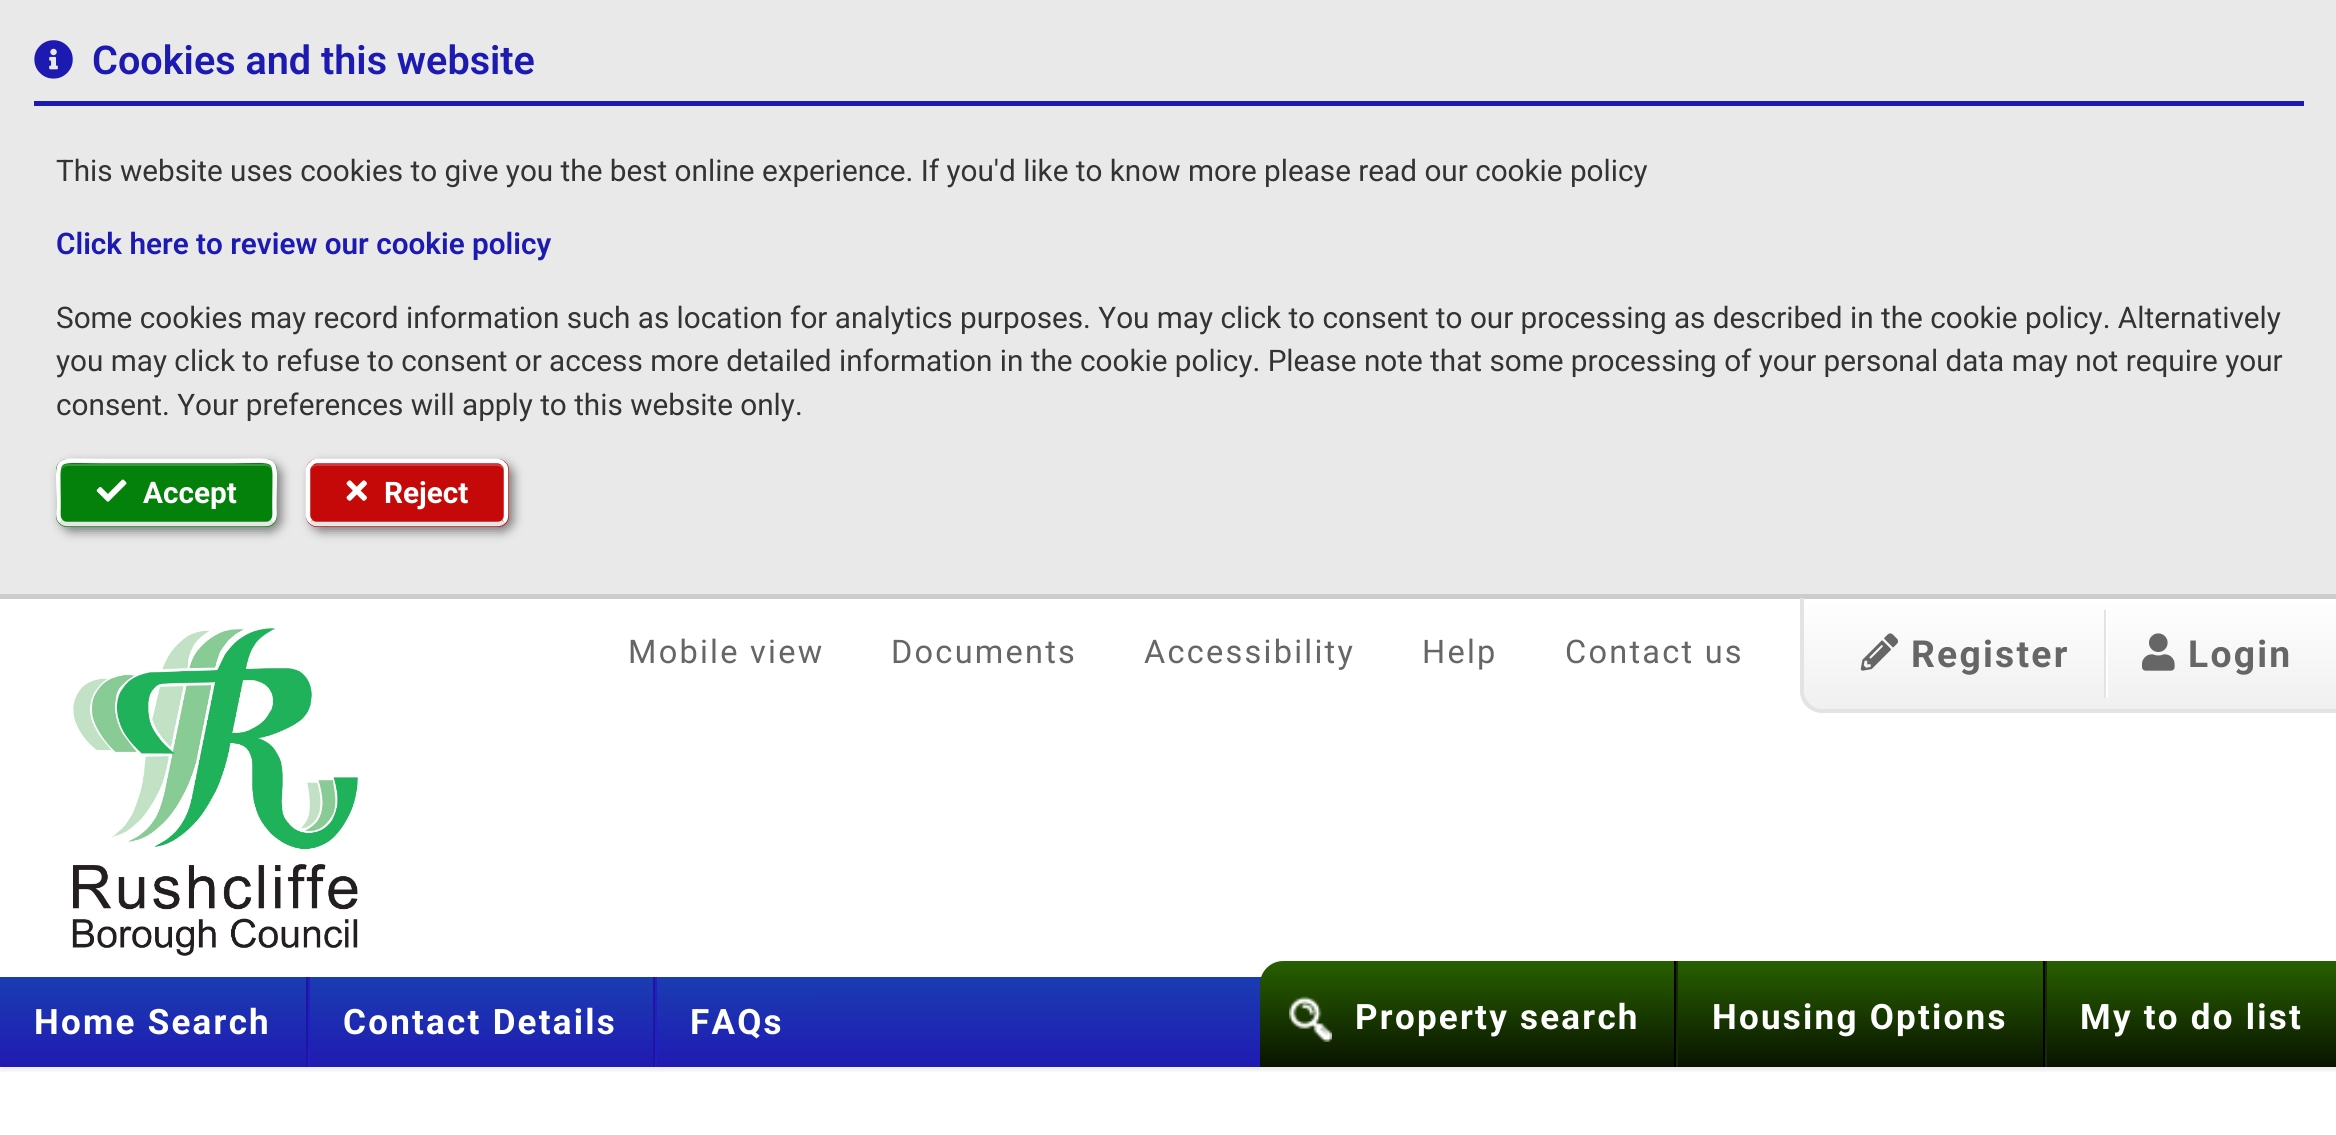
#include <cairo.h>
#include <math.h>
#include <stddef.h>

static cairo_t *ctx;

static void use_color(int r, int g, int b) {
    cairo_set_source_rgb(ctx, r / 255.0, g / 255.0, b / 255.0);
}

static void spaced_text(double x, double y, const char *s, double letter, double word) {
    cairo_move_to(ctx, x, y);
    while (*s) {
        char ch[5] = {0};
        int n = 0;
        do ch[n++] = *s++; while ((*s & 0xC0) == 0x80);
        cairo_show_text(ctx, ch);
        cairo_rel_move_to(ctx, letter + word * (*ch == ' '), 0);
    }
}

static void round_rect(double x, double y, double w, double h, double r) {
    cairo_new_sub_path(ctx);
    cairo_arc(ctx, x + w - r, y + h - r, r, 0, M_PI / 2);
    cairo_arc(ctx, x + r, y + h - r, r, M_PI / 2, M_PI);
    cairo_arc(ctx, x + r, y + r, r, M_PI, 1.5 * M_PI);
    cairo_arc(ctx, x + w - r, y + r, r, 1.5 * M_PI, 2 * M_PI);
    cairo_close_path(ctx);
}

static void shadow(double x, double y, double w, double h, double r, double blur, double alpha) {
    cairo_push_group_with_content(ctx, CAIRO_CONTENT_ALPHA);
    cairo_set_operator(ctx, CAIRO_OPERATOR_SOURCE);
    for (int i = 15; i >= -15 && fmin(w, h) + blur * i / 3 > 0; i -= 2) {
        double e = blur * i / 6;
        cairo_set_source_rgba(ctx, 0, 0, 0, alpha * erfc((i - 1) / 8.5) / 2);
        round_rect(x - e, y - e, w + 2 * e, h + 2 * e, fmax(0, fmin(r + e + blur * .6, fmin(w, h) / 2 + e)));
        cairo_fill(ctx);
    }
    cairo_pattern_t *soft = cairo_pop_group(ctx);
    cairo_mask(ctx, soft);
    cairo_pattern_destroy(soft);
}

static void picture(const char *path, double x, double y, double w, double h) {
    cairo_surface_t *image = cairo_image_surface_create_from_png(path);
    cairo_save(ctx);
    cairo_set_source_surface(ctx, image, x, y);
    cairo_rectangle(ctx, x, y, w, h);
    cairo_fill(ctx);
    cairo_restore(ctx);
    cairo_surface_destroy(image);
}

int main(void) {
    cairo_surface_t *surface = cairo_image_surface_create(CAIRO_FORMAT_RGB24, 2336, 1135);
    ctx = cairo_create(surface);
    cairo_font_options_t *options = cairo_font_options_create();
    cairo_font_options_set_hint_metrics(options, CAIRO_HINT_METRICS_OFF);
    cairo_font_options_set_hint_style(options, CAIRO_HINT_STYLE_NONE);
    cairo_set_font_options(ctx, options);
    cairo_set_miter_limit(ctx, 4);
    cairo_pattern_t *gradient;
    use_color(255, 255, 255);
    cairo_paint(ctx);
    use_color(233, 233, 233);
    cairo_rectangle(ctx, 0, 0, 2336, 594);
    cairo_fill(ctx);
    use_color(205, 204, 204);
    cairo_rectangle(ctx, 0, 594, 2336, 5);
    cairo_fill(ctx);
    use_color(29, 26, 178);
    cairo_rectangle(ctx, 34, 101, 2270, 5);
    cairo_fill(ctx);
    picture("img1.png", 34, 40, 39, 39);
    cairo_select_font_face(ctx, "Roboto SemiBold", CAIRO_FONT_SLANT_NORMAL, CAIRO_FONT_WEIGHT_NORMAL);
    cairo_set_font_size(ctx, 39.6);
    cairo_move_to(ctx, 92, 74);
    cairo_show_text(ctx, "Cookies and this website");
    cairo_select_font_face(ctx, "Roboto", CAIRO_FONT_SLANT_NORMAL, CAIRO_FONT_WEIGHT_NORMAL);
    cairo_set_font_size(ctx, 29.7);
    use_color(51, 51, 51);
    cairo_move_to(ctx, 56, 181);
    cairo_show_text(ctx, "This website uses cookies to give you the best online experience. If you'd like to know more please read our cookie policy");
    cairo_select_font_face(ctx, "Roboto SemiBold", CAIRO_FONT_SLANT_NORMAL, CAIRO_FONT_WEIGHT_NORMAL);
    use_color(29, 26, 178);
    cairo_move_to(ctx, 56, 254);
    cairo_show_text(ctx, "Click here to review our cookie policy");
    cairo_select_font_face(ctx, "Roboto", CAIRO_FONT_SLANT_NORMAL, CAIRO_FONT_WEIGHT_NORMAL);
    use_color(51, 51, 51);
    cairo_move_to(ctx, 56, 328);
    cairo_show_text(ctx, "Some cookies may record information such as location for analytics purposes. You may click to consent to our processing as described in the cookie policy. Alternatively");
    cairo_move_to(ctx, 56, 371);
    cairo_show_text(ctx, "you may click to refuse to consent or access more detailed information in the cookie policy. Please note that some processing of your personal data may not require your");
    cairo_move_to(ctx, 56, 415);
    cairo_show_text(ctx, "consent. Your preferences will apply to this website only.");
    use_color(0, 0, 0);
    shadow(61, 464, 220, 67, 11, 5.5, 0.5);
    use_color(4, 129, 10);
    round_rect(56, 459, 221, 68, 11);
    cairo_fill(ctx);
    use_color(54, 154, 59);
    cairo_new_path(ctx);
    cairo_move_to(ctx, 68, 466);
    cairo_line_to(ctx, 266, 466);
    cairo_curve_to(ctx, 269, 466, 272, 469, 272, 472);
    cairo_line_to(ctx, 272, 471);
    cairo_curve_to(ctx, 272, 467, 269, 464, 265, 464);
    cairo_line_to(ctx, 68, 464);
    cairo_curve_to(ctx, 64, 464, 61, 467, 61, 471);
    cairo_line_to(ctx, 61, 472);
    cairo_curve_to(ctx, 61, 469, 64, 466, 68, 466);
    cairo_close_path(ctx);
    cairo_fill(ctx);
    cairo_new_path(ctx);
    cairo_move_to(ctx, 272, 521.5);
    cairo_curve_to(ctx, 270, 523.5, 268, 524, 265.5, 524);
    cairo_line_to(ctx, 67.5, 524);
    cairo_curve_to(ctx, 65, 524, 63, 523.5, 61, 521.5);
    use_color(230, 230, 230);
    cairo_set_line_width(ctx, 4.5);
    cairo_stroke(ctx);
    cairo_new_path(ctx);
    cairo_move_to(ctx, 61, 521.5);
    cairo_curve_to(ctx, 57.5, 518, 58.5, 512.5, 58.5, 508);
    cairo_line_to(ctx, 58.5, 500);
    cairo_curve_to(ctx, 58.5, 454.5, 52, 461, 100.5, 461);
    cairo_line_to(ctx, 232.5, 461);
    cairo_curve_to(ctx, 281, 461, 274.5, 454.5, 274.5, 500);
    cairo_line_to(ctx, 274.5, 508);
    cairo_curve_to(ctx, 274.5, 512.5, 275.5, 518, 272, 521.5);
    use_color(255, 255, 255);
    cairo_stroke(ctx);
    picture("img2.png", 96, 479, 31, 23);
    cairo_select_font_face(ctx, "Roboto", CAIRO_FONT_SLANT_NORMAL, CAIRO_FONT_WEIGHT_BOLD);
    cairo_move_to(ctx, 143, 503);
    cairo_show_text(ctx, "Accept");
    use_color(0, 0, 0);
    shadow(311, 464, 202, 67, 11, 5.5, 0.5);
    use_color(197, 9, 9);
    round_rect(306, 459, 203, 68, 11);
    cairo_fill(ctx);
    use_color(209, 58, 58);
    cairo_new_path(ctx);
    cairo_move_to(ctx, 317, 466);
    cairo_line_to(ctx, 497, 466);
    cairo_curve_to(ctx, 501, 466, 504, 469, 504, 472);
    cairo_line_to(ctx, 504, 471);
    cairo_curve_to(ctx, 504, 467, 501, 464, 497, 464);
    cairo_line_to(ctx, 318, 464);
    cairo_curve_to(ctx, 315, 464, 312, 466, 311, 469);
    cairo_curve_to(ctx, 313, 467, 315, 466, 317, 466);
    cairo_close_path(ctx);
    cairo_fill(ctx);
    cairo_new_path(ctx);
    cairo_move_to(ctx, 503.5, 521.5);
    cairo_curve_to(ctx, 502, 523.5, 499.5, 524, 497, 524);
    cairo_line_to(ctx, 317, 524);
    cairo_curve_to(ctx, 315, 524, 312.5, 523.5, 311, 521.5);
    use_color(230, 230, 230);
    cairo_stroke(ctx);
    cairo_new_path(ctx);
    cairo_move_to(ctx, 311, 521.5);
    cairo_curve_to(ctx, 309, 520, 308, 517.5, 308, 515);
    cairo_line_to(ctx, 308, 470);
    cairo_curve_to(ctx, 308, 468, 309, 465.5, 311, 464);
    cairo_curve_to(ctx, 312.5, 462, 315, 461, 317, 461);
    cairo_line_to(ctx, 497, 461);
    cairo_curve_to(ctx, 499.5, 461, 502, 462, 503.5, 464);
    cairo_curve_to(ctx, 505.5, 465.5, 506, 468, 506, 470);
    cairo_line_to(ctx, 506, 515);
    cairo_curve_to(ctx, 506, 517.5, 505.5, 520, 503.5, 521.5);
    use_color(255, 255, 255);
    cairo_stroke(ctx);
    picture("img3.png", 346, 480, 21, 21);
    cairo_move_to(ctx, 384, 503);
    cairo_show_text(ctx, "Reject");
    picture("img4.png", 72, 628, 287, 328);
    cairo_select_font_face(ctx, "Roboto", CAIRO_FONT_SLANT_NORMAL, CAIRO_FONT_WEIGHT_NORMAL);
    cairo_set_font_size(ctx, 32.5);
    use_color(102, 102, 102);
    spaced_text(628, 663, "Mobile view", 2.25, 0);
    spaced_text(891, 663, "Documents", 2.25, 0);
    spaced_text(1144, 663, "Accessibility", 2.25, 0);
    spaced_text(1422, 663, "Help", 2.25, 0);
    spaced_text(1565, 663, "Contact us", 2.25, 0);
    cairo_save(ctx);
    cairo_new_path(ctx);
    cairo_move_to(ctx, 1800, 599);
    cairo_line_to(ctx, 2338, 599);
    cairo_line_to(ctx, 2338, 713);
    cairo_line_to(ctx, 1823, 713);
    cairo_curve_to(ctx, 1810.5, 713, 1800, 702.5, 1800, 690);
    cairo_close_path(ctx);
    cairo_clip(ctx);
    gradient = cairo_pattern_create_linear(2071, 599, 2071, 709);
    cairo_pattern_add_color_stop_rgba(gradient, 0, 1, 1, 1, 1);
    cairo_pattern_add_color_stop_rgba(gradient, 1, 0.941, 0.941, 0.941, 1);
    cairo_set_source(ctx, gradient);
    cairo_pattern_destroy(gradient);
    cairo_rectangle(ctx, 1800, 599, 536, 110);
    cairo_fill(ctx);
    cairo_restore(ctx);
    use_color(227, 227, 227);
    cairo_set_fill_rule(ctx, CAIRO_FILL_RULE_EVEN_ODD);
    cairo_new_path(ctx);
    cairo_move_to(ctx, 1800, 598);
    cairo_line_to(ctx, 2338, 598);
    cairo_line_to(ctx, 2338, 713);
    cairo_line_to(ctx, 1822, 713);
    cairo_curve_to(ctx, 1810, 713, 1800, 703, 1800, 691);
    cairo_close_path(ctx);
    cairo_move_to(ctx, 1804, 598);
    cairo_line_to(ctx, 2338, 598);
    cairo_line_to(ctx, 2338, 709);
    cairo_line_to(ctx, 1822, 709);
    cairo_curve_to(ctx, 1813, 709, 1804, 701, 1804, 691);
    cairo_close_path(ctx);
    cairo_fill(ctx);
    cairo_rectangle(ctx, 2104, 610, 2, 88);
    cairo_fill(ctx);
    picture("img5.png", 1860, 633, 39, 38);
    cairo_select_font_face(ctx, "Roboto", CAIRO_FONT_SLANT_NORMAL, CAIRO_FONT_WEIGHT_BOLD);
    cairo_set_font_size(ctx, 37.25);
    use_color(102, 102, 102);
    spaced_text(1911, 667, "Register", 2.25, 0);
    use_color(255, 255, 255);
    cairo_rectangle(ctx, 2106, 610, 2, 88);
    cairo_fill(ctx);
    picture("img6.png", 2142, 633, 33, 38);
    use_color(102, 102, 102);
    spaced_text(2188, 667, "Login", 2.25, 0);
    cairo_save(ctx);
    cairo_set_fill_rule(ctx, CAIRO_FILL_RULE_WINDING);
    cairo_rectangle(ctx, 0, 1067, 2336, 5);
    cairo_clip(ctx);
    use_color(0, 0, 0);
    shadow(0, 965, 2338, 106, 0, 2, 0.07);
    cairo_restore(ctx);
    gradient = cairo_pattern_create_linear(1158, 976, 1158, 1067);
    cairo_pattern_add_color_stop_rgba(gradient, 0, 0.102, 0.239, 0.698, 1);
    cairo_pattern_add_color_stop_rgba(gradient, 1, 0.125, 0.102, 0.698, 1);
    cairo_set_source(ctx, gradient);
    cairo_pattern_destroy(gradient);
    cairo_rectangle(ctx, 817, 977, 445, 90);
    cairo_fill(ctx);
    gradient = cairo_pattern_create_linear(153, 977, 153, 1067);
    cairo_pattern_add_color_stop_rgba(gradient, 0, 0.102, 0.239, 0.698, 1);
    cairo_pattern_add_color_stop_rgba(gradient, 1, 0.125, 0.102, 0.698, 1);
    cairo_set_source(ctx, gradient);
    cairo_pattern_destroy(gradient);
    cairo_rectangle(ctx, 0, 977, 306, 90);
    cairo_fill(ctx);
    use_color(28, 23, 156);
    cairo_rectangle(ctx, 306, 977, 2, 90);
    cairo_fill(ctx);
    cairo_set_font_size(ctx, 35);
    use_color(255, 255, 255);
    spaced_text(34, 1034, "Home Search", 2.25, 0);
    gradient = cairo_pattern_create_linear(482, 977, 482, 1067);
    cairo_pattern_add_color_stop_rgba(gradient, 0, 0.102, 0.239, 0.698, 1);
    cairo_pattern_add_color_stop_rgba(gradient, 1, 0.125, 0.102, 0.698, 1);
    cairo_set_source(ctx, gradient);
    cairo_pattern_destroy(gradient);
    cairo_rectangle(ctx, 310, 977, 343, 90);
    cairo_fill(ctx);
    use_color(28, 23, 156);
    cairo_rectangle(ctx, 653, 977, 2, 90);
    cairo_fill(ctx);
    use_color(35, 29, 200);
    cairo_rectangle(ctx, 308, 977, 2, 90);
    cairo_fill(ctx);
    use_color(255, 255, 255);
    spaced_text(343, 1034, "Contact Details", 2.25, 0);
    gradient = cairo_pattern_create_linear(737, 977, 737, 1067);
    cairo_pattern_add_color_stop_rgba(gradient, 0, 0.102, 0.239, 0.698, 1);
    cairo_pattern_add_color_stop_rgba(gradient, 1, 0.125, 0.102, 0.698, 1);
    cairo_set_source(ctx, gradient);
    cairo_pattern_destroy(gradient);
    cairo_rectangle(ctx, 657, 977, 160, 90);
    cairo_fill(ctx);
    use_color(35, 29, 200);
    cairo_rectangle(ctx, 655, 977, 2, 90);
    cairo_fill(ctx);
    use_color(255, 255, 255);
    spaced_text(690, 1034, "FAQs", 2.25, 0);
    gradient = cairo_pattern_create_linear(1799, 961, 1799, 1067);
    cairo_pattern_add_color_stop_rgba(gradient, 0, 0.157, 0.376, 0, 1);
    cairo_pattern_add_color_stop_rgba(gradient, 1, 0.035, 0.078, 0, 1);
    cairo_set_source(ctx, gradient);
    cairo_pattern_destroy(gradient);
    cairo_new_path(ctx);
    cairo_move_to(ctx, 1283, 961);
    cairo_line_to(ctx, 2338, 961);
    cairo_line_to(ctx, 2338, 1067);
    cairo_line_to(ctx, 1260, 1067);
    cairo_line_to(ctx, 1260, 984);
    cairo_curve_to(ctx, 1260, 971.5, 1270.5, 961, 1283, 961);
    cairo_close_path(ctx);
    cairo_fill(ctx);
    use_color(0, 0, 0);
    cairo_rectangle(ctx, 1674, 961, 2, 106);
    cairo_fill(ctx);
    picture("img7.png", 1289, 996, 43, 46);
    use_color(255, 255, 255);
    spaced_text(1355, 1029, "Property search", 2.25, 0);
    use_color(0, 0, 0);
    cairo_rectangle(ctx, 2043, 961, 2, 106);
    cairo_fill(ctx);
    use_color(20, 45, 0);
    cairo_rectangle(ctx, 1676, 961, 2, 106);
    cairo_fill(ctx);
    use_color(255, 255, 255);
    spaced_text(1712, 1029, "Housing Options", 2.25, 0);
    use_color(20, 45, 0);
    cairo_rectangle(ctx, 2045, 961, 2, 106);
    cairo_fill(ctx);
    use_color(255, 255, 255);
    spaced_text(2080, 1029, "My to do list", 2.25, 0);
    cairo_surface_write_to_png(surface, "result.png");
    cairo_font_options_destroy(options);
    cairo_destroy(ctx);
    cairo_surface_destroy(surface);
    return 0;
}
